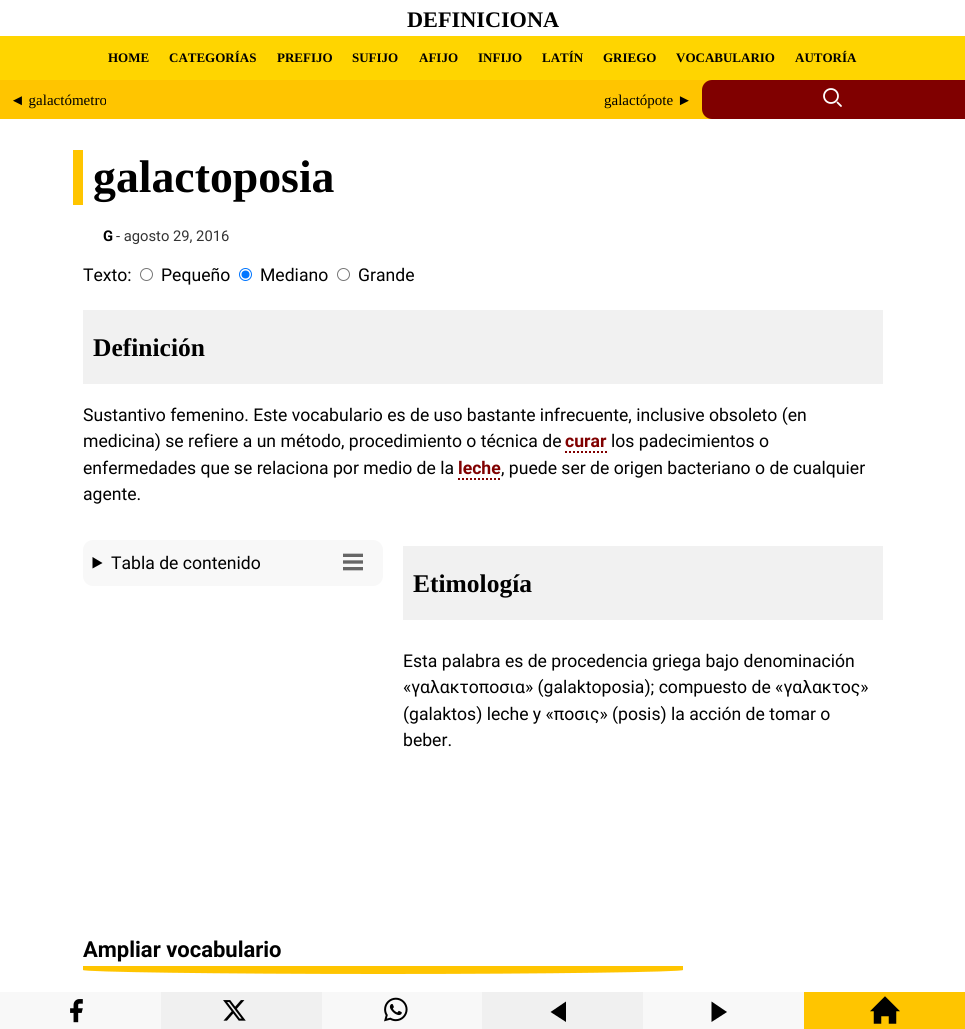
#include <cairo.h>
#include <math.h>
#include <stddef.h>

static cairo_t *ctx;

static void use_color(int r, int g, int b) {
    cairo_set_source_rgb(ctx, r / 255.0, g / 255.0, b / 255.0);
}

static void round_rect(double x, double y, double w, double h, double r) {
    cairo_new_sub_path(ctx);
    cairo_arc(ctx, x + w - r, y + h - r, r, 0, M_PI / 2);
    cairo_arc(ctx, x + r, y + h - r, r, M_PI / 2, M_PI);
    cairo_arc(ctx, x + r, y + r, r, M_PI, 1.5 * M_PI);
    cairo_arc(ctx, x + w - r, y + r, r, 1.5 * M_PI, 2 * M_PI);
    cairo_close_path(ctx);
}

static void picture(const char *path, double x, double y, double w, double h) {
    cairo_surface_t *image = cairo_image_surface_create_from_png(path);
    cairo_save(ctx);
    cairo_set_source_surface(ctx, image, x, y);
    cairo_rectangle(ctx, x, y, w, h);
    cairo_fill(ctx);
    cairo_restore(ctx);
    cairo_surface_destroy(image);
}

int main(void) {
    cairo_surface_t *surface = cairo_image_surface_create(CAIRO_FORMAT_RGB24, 965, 1029);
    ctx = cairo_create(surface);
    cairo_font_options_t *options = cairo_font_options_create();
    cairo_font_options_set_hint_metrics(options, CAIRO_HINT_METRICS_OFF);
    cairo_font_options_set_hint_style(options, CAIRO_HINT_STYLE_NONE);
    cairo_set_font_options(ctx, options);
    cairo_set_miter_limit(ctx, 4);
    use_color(255, 255, 255);
    cairo_paint(ctx);
    cairo_select_font_face(ctx, "Liberation Serif", CAIRO_FONT_SLANT_NORMAL, CAIRO_FONT_WEIGHT_BOLD);
    cairo_set_font_size(ctx, 22.25);
    use_color(0, 0, 0);
    cairo_move_to(ctx, 407, 27);
    cairo_show_text(ctx, "DEFINICIONA");
    use_color(255, 213, 0);
    cairo_rectangle(ctx, 0, 36, 965, 44);
    cairo_fill(ctx);
    cairo_set_font_size(ctx, 13);
    use_color(0, 0, 0);
    cairo_move_to(ctx, 108, 62);
    cairo_show_text(ctx, "HOME");
    cairo_move_to(ctx, 169, 62);
    cairo_show_text(ctx, "CATEGORÍAS");
    cairo_move_to(ctx, 277, 62);
    cairo_show_text(ctx, "PREFIJO");
    cairo_move_to(ctx, 352, 62);
    cairo_show_text(ctx, "SUFIJO");
    cairo_move_to(ctx, 419, 62);
    cairo_show_text(ctx, "AFIJO");
    cairo_move_to(ctx, 478, 62);
    cairo_show_text(ctx, "INFIJO");
    cairo_move_to(ctx, 542, 62);
    cairo_show_text(ctx, "LATÍN");
    cairo_move_to(ctx, 603, 62);
    cairo_show_text(ctx, "GRIEGO");
    cairo_move_to(ctx, 676, 62);
    cairo_show_text(ctx, "VOCABULARIO");
    cairo_move_to(ctx, 795, 62);
    cairo_show_text(ctx, "AUTORÍA");
    use_color(255, 197, 0);
    cairo_rectangle(ctx, 0, 80, 712, 39);
    cairo_fill(ctx);
    cairo_select_font_face(ctx, "Liberation Serif", CAIRO_FONT_SLANT_NORMAL, CAIRO_FONT_WEIGHT_NORMAL);
    cairo_set_font_size(ctx, 15);
    use_color(0, 0, 0);
    cairo_move_to(ctx, 10, 105);
    cairo_show_text(ctx, "◄ galactómetro");
    cairo_move_to(ctx, 604, 105);
    cairo_show_text(ctx, "galactópote ►");
    use_color(128, 0, 0);
    cairo_new_path(ctx);
    cairo_move_to(ctx, 712, 80);
    cairo_line_to(ctx, 965, 80);
    cairo_line_to(ctx, 965, 119);
    cairo_line_to(ctx, 712, 119);
    cairo_curve_to(ctx, 706.5, 119, 702, 114.5, 702, 109);
    cairo_line_to(ctx, 702, 90);
    cairo_curve_to(ctx, 702, 84.5, 706.5, 80, 712, 80);
    cairo_close_path(ctx);
    cairo_fill(ctx);
    cairo_arc(ctx, 831, 96, 7, 0, 2 * M_PI);
    use_color(255, 255, 255);
    cairo_set_line_width(ctx, 1.8);
    cairo_stroke(ctx);
    cairo_new_path(ctx);
    cairo_move_to(ctx, 841, 106);
    cairo_line_to(ctx, 837.5, 102.5);
    cairo_set_line_cap(ctx, CAIRO_LINE_CAP_ROUND);
    cairo_set_line_join(ctx, CAIRO_LINE_JOIN_ROUND);
    cairo_stroke(ctx);
    use_color(255, 197, 0);
    cairo_rectangle(ctx, 73, 150, 10, 55);
    cairo_fill(ctx);
    cairo_select_font_face(ctx, "Liberation Serif", CAIRO_FONT_SLANT_NORMAL, CAIRO_FONT_WEIGHT_BOLD);
    cairo_set_font_size(ctx, 45.75);
    use_color(0, 0, 0);
    cairo_move_to(ctx, 93, 192);
    cairo_show_text(ctx, "galactoposia");
    cairo_select_font_face(ctx, "Roboto", CAIRO_FONT_SLANT_NORMAL, CAIRO_FONT_WEIGHT_BOLD);
    cairo_set_font_size(ctx, 14.75);
    cairo_move_to(ctx, 103, 241);
    cairo_show_text(ctx, "G");
    cairo_select_font_face(ctx, "Roboto", CAIRO_FONT_SLANT_NORMAL, CAIRO_FONT_WEIGHT_NORMAL);
    use_color(51, 51, 51);
    cairo_move_to(ctx, 116, 241);
    cairo_show_text(ctx, "- agosto 29, 2016");
    cairo_set_font_size(ctx, 17.6);
    use_color(0, 0, 0);
    cairo_move_to(ctx, 83, 281);
    cairo_show_text(ctx, "Texto:");
    cairo_new_path(ctx);
    cairo_arc(ctx, 146.5, 274.5, 6, 0, 2 * M_PI);
    use_color(118, 118, 118);
    cairo_set_line_width(ctx, 1);
    cairo_set_line_cap(ctx, CAIRO_LINE_CAP_BUTT);
    cairo_set_line_join(ctx, CAIRO_LINE_JOIN_MITER);
    cairo_stroke(ctx);
    use_color(0, 0, 0);
    cairo_move_to(ctx, 161, 281);
    cairo_show_text(ctx, "Pequeño");
    cairo_new_path(ctx);
    cairo_arc(ctx, 245.5, 274.5, 6, 0, 2 * M_PI);
    use_color(0, 117, 255);
    cairo_stroke(ctx);
    cairo_arc(ctx, 245.5, 274.5, 4, 0, 2 * M_PI);
    cairo_fill(ctx);
    use_color(0, 0, 0);
    cairo_move_to(ctx, 260, 281);
    cairo_show_text(ctx, "Mediano");
    cairo_new_path(ctx);
    cairo_arc(ctx, 343.5, 274.5, 6, 0, 2 * M_PI);
    use_color(118, 118, 118);
    cairo_stroke(ctx);
    use_color(0, 0, 0);
    cairo_move_to(ctx, 358, 281);
    cairo_show_text(ctx, "Grande");
    use_color(241, 241, 241);
    cairo_rectangle(ctx, 83, 310, 800, 74);
    cairo_fill(ctx);
    cairo_select_font_face(ctx, "Liberation Serif", CAIRO_FONT_SLANT_NORMAL, CAIRO_FONT_WEIGHT_BOLD);
    cairo_set_font_size(ctx, 25.5);
    use_color(0, 0, 0);
    cairo_move_to(ctx, 93, 356);
    cairo_show_text(ctx, "Definición");
    cairo_select_font_face(ctx, "Roboto", CAIRO_FONT_SLANT_NORMAL, CAIRO_FONT_WEIGHT_NORMAL);
    cairo_set_font_size(ctx, 17.6);
    cairo_move_to(ctx, 83, 421);
    cairo_show_text(ctx, "Sustantivo femenino. Este vocabulario es de uso bastante infrecuente, inclusive obsoleto (en");
    cairo_move_to(ctx, 83, 447);
    cairo_show_text(ctx, "medicina) se refiere a un método, procedimiento o técnica de");
    cairo_select_font_face(ctx, "Roboto", CAIRO_FONT_SLANT_NORMAL, CAIRO_FONT_WEIGHT_BOLD);
    use_color(128, 0, 0);
    cairo_move_to(ctx, 565, 447);
    cairo_show_text(ctx, "curar");
    cairo_new_path(ctx);
    cairo_move_to(ctx, 565, 452);
    cairo_line_to(ctx, 607, 452);
    cairo_set_line_width(ctx, 2);
    cairo_set_dash(ctx, (double[]){2, 2}, 2, 0);
    cairo_stroke(ctx);
    cairo_select_font_face(ctx, "Roboto", CAIRO_FONT_SLANT_NORMAL, CAIRO_FONT_WEIGHT_NORMAL);
    use_color(0, 0, 0);
    cairo_move_to(ctx, 611, 447);
    cairo_show_text(ctx, "los padecimientos o");
    cairo_move_to(ctx, 83, 474);
    cairo_show_text(ctx, "enfermedades que se relaciona por medio de la");
    cairo_select_font_face(ctx, "Roboto", CAIRO_FONT_SLANT_NORMAL, CAIRO_FONT_WEIGHT_BOLD);
    use_color(128, 0, 0);
    cairo_move_to(ctx, 458, 474);
    cairo_show_text(ctx, "leche");
    cairo_new_path(ctx);
    cairo_move_to(ctx, 458, 479);
    cairo_line_to(ctx, 501, 479);
    cairo_stroke(ctx);
    cairo_select_font_face(ctx, "Roboto", CAIRO_FONT_SLANT_NORMAL, CAIRO_FONT_WEIGHT_NORMAL);
    use_color(0, 0, 0);
    cairo_move_to(ctx, 501, 474);
    cairo_show_text(ctx, ", puede ser de origen bacteriano o de cualquier");
    cairo_move_to(ctx, 83, 500);
    cairo_show_text(ctx, "agente.");
    use_color(248, 248, 248);
    round_rect(83, 540, 300, 46, 10);
    cairo_fill(ctx);
    use_color(0, 0, 0);
    cairo_new_path(ctx);
    cairo_move_to(ctx, 92.5, 557);
    cairo_line_to(ctx, 102.5, 563);
    cairo_line_to(ctx, 92.5, 568.5);
    cairo_close_path(ctx);
    cairo_fill(ctx);
    cairo_move_to(ctx, 111, 569);
    cairo_show_text(ctx, "Tabla de contenido");
    picture("img1.png", 343, 553, 20, 18);
    use_color(241, 241, 241);
    cairo_rectangle(ctx, 403, 546, 480, 74);
    cairo_fill(ctx);
    cairo_select_font_face(ctx, "Liberation Serif", CAIRO_FONT_SLANT_NORMAL, CAIRO_FONT_WEIGHT_BOLD);
    cairo_set_font_size(ctx, 25.5);
    use_color(0, 0, 0);
    cairo_move_to(ctx, 413, 592);
    cairo_show_text(ctx, "Etimología");
    cairo_select_font_face(ctx, "Roboto", CAIRO_FONT_SLANT_NORMAL, CAIRO_FONT_WEIGHT_NORMAL);
    cairo_set_font_size(ctx, 17.6);
    cairo_move_to(ctx, 403, 667);
    cairo_show_text(ctx, "Esta palabra es de procedencia griega bajo denominación");
    cairo_move_to(ctx, 403, 693);
    cairo_show_text(ctx, "«γαλακτοποσια» (galaktoposia); compuesto de «γαλακτος»");
    cairo_move_to(ctx, 403, 720);
    cairo_show_text(ctx, "(galaktos) leche y «ποσις» (posis) la acción de tomar o");
    cairo_move_to(ctx, 403, 746);
    cairo_show_text(ctx, "beber.");
    cairo_select_font_face(ctx, "Roboto", CAIRO_FONT_SLANT_NORMAL, CAIRO_FONT_WEIGHT_BOLD);
    cairo_set_font_size(ctx, 22);
    cairo_move_to(ctx, 83, 957);
    cairo_show_text(ctx, "Ampliar vocabulario");
    use_color(255, 197, 0);
    cairo_new_path(ctx);
    cairo_move_to(ctx, 83, 966);
    cairo_line_to(ctx, 683, 966);
    cairo_line_to(ctx, 683, 970);
    cairo_curve_to(ctx, 683, 972, 549, 974, 383, 974);
    cairo_curve_to(ctx, 217, 974, 83, 972, 83, 970);
    cairo_close_path(ctx);
    cairo_fill(ctx);
    use_color(248, 248, 248);
    cairo_rectangle(ctx, 0, 992, 804, 37);
    cairo_fill(ctx);
    picture("img2.png", 70, 999, 13, 24);
    use_color(240, 240, 240);
    cairo_rectangle(ctx, 161, 992, 161, 37);
    cairo_fill(ctx);
    picture("img3.png", 223, 1000, 23, 21);
    picture("img4.png", 384, 997, 24, 25);
    cairo_rectangle(ctx, 482, 992, 161, 37);
    cairo_fill(ctx);
    use_color(0, 0, 0);
    cairo_new_path(ctx);
    cairo_move_to(ctx, 550.5, 1012);
    cairo_line_to(ctx, 566, 1001.5);
    cairo_line_to(ctx, 566, 1022);
    cairo_close_path(ctx);
    cairo_fill(ctx);
    cairo_new_path(ctx);
    cairo_move_to(ctx, 727, 1012);
    cairo_line_to(ctx, 711.5, 1022);
    cairo_line_to(ctx, 711.5, 1001.5);
    cairo_close_path(ctx);
    cairo_fill(ctx);
    use_color(255, 197, 0);
    cairo_rectangle(ctx, 804, 992, 161, 37);
    cairo_fill(ctx);
    picture("img5.png", 870, 996, 30, 28);
    cairo_surface_write_to_png(surface, "result.png");
    cairo_font_options_destroy(options);
    cairo_destroy(ctx);
    cairo_surface_destroy(surface);
    return 0;
}
